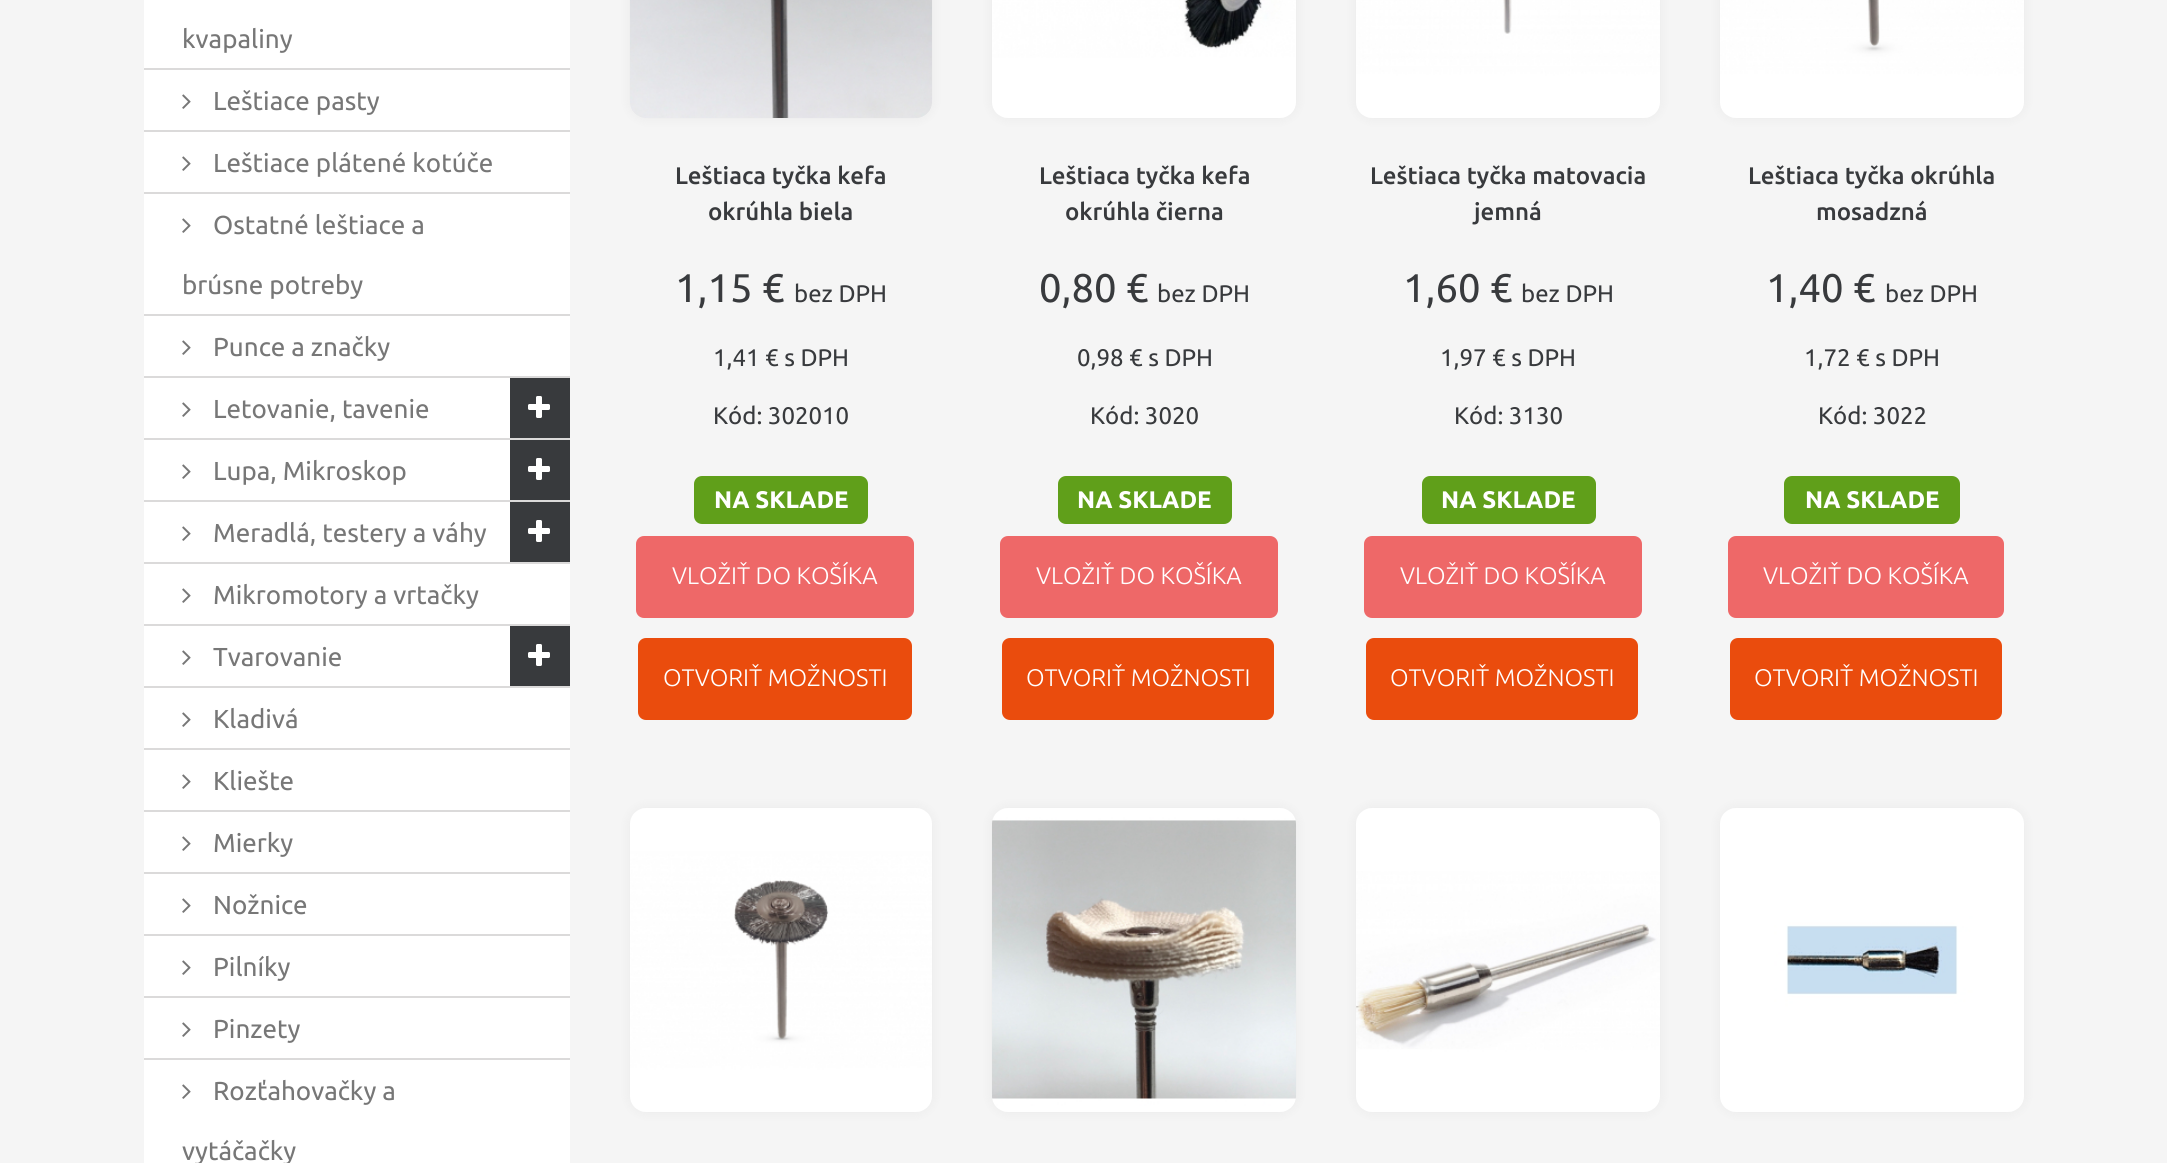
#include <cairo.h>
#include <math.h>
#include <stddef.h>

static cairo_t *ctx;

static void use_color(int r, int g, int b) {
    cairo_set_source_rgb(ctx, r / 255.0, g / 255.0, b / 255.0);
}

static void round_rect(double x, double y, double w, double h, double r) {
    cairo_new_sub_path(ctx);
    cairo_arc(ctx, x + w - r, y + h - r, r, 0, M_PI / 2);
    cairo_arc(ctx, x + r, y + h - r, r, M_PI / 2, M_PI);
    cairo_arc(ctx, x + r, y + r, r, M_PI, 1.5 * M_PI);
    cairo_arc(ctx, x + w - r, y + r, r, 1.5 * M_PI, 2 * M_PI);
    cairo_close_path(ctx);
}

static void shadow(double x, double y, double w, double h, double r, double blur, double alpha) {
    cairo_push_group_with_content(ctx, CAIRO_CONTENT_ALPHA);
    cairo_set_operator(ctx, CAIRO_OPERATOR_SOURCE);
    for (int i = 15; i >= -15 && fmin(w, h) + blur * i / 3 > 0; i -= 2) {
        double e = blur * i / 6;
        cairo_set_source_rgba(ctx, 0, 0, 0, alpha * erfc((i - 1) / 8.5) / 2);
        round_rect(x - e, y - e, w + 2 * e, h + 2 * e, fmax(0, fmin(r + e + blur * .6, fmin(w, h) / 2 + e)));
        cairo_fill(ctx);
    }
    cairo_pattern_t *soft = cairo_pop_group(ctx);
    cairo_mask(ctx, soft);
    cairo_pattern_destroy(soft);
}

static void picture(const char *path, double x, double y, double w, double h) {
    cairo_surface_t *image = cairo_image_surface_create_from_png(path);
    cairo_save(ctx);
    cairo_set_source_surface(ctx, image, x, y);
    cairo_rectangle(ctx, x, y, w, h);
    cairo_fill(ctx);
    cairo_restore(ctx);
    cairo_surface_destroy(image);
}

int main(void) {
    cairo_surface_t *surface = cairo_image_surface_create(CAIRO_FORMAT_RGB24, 2167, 1163);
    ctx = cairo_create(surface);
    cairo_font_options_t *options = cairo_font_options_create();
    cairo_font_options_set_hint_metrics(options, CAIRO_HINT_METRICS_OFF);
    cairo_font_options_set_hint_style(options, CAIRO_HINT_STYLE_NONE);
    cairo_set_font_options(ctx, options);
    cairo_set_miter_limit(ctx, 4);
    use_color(245, 245, 245);
    cairo_paint(ctx);
    use_color(255, 255, 255);
    cairo_rectangle(ctx, 144, 0, 426, 68);
    cairo_fill(ctx);
    use_color(219, 218, 218);
    cairo_rectangle(ctx, 144, 68, 426, 2);
    cairo_fill(ctx);
    cairo_select_font_face(ctx, "Ubuntu", CAIRO_FONT_SLANT_NORMAL, CAIRO_FONT_WEIGHT_NORMAL);
    cairo_set_font_size(ctx, 26);
    use_color(119, 119, 119);
    cairo_move_to(ctx, 182, 48);
    cairo_show_text(ctx, "kvapaliny");
    use_color(255, 255, 255);
    cairo_rectangle(ctx, 144, 70, 426, 60);
    cairo_fill(ctx);
    use_color(219, 218, 218);
    cairo_rectangle(ctx, 144, 130, 426, 2);
    cairo_fill(ctx);
    picture("img1.png", 182, 94, 9, 15);
    use_color(119, 119, 119);
    cairo_move_to(ctx, 213, 110);
    cairo_show_text(ctx, "Leštiace pasty");
    use_color(255, 255, 255);
    cairo_rectangle(ctx, 144, 132, 426, 60);
    cairo_fill(ctx);
    use_color(219, 218, 218);
    cairo_rectangle(ctx, 144, 192, 426, 2);
    cairo_fill(ctx);
    picture("img1.png", 182, 156, 9, 15);
    use_color(119, 119, 119);
    cairo_move_to(ctx, 213, 172);
    cairo_show_text(ctx, "Leštiace plátené kotúče");
    use_color(255, 255, 255);
    cairo_rectangle(ctx, 144, 194, 426, 120);
    cairo_fill(ctx);
    use_color(219, 218, 218);
    cairo_rectangle(ctx, 144, 314, 426, 2);
    cairo_fill(ctx);
    picture("img1.png", 182, 218, 9, 15);
    use_color(119, 119, 119);
    cairo_move_to(ctx, 213, 234);
    cairo_show_text(ctx, "Ostatné leštiace a");
    cairo_move_to(ctx, 182, 294);
    cairo_show_text(ctx, "brúsne potreby");
    use_color(255, 255, 255);
    cairo_rectangle(ctx, 144, 316, 426, 60);
    cairo_fill(ctx);
    use_color(219, 218, 218);
    cairo_rectangle(ctx, 144, 376, 426, 2);
    cairo_fill(ctx);
    picture("img1.png", 182, 340, 9, 15);
    use_color(119, 119, 119);
    cairo_move_to(ctx, 213, 356);
    cairo_show_text(ctx, "Punce a značky");
    use_color(255, 255, 255);
    cairo_rectangle(ctx, 144, 378, 366, 60);
    cairo_fill(ctx);
    use_color(219, 218, 218);
    cairo_rectangle(ctx, 144, 438, 426, 2);
    cairo_fill(ctx);
    picture("img1.png", 182, 402, 9, 15);
    use_color(119, 119, 119);
    cairo_move_to(ctx, 213, 418);
    cairo_show_text(ctx, "Letovanie, tavenie");
    use_color(56, 58, 61);
    cairo_rectangle(ctx, 510, 378, 60, 60);
    cairo_fill(ctx);
    picture("img2.png", 528, 396, 22, 22);
    use_color(255, 255, 255);
    cairo_rectangle(ctx, 144, 440, 366, 60);
    cairo_fill(ctx);
    use_color(219, 218, 218);
    cairo_rectangle(ctx, 144, 500, 426, 2);
    cairo_fill(ctx);
    picture("img1.png", 182, 464, 9, 15);
    use_color(119, 119, 119);
    cairo_move_to(ctx, 213, 480);
    cairo_show_text(ctx, "Lupa, Mikroskop");
    use_color(56, 58, 61);
    cairo_rectangle(ctx, 510, 440, 60, 60);
    cairo_fill(ctx);
    picture("img2.png", 528, 458, 22, 22);
    use_color(255, 255, 255);
    cairo_rectangle(ctx, 144, 502, 366, 60);
    cairo_fill(ctx);
    use_color(219, 218, 218);
    cairo_rectangle(ctx, 144, 562, 426, 2);
    cairo_fill(ctx);
    picture("img1.png", 182, 526, 9, 15);
    use_color(119, 119, 119);
    cairo_move_to(ctx, 213, 542);
    cairo_show_text(ctx, "Meradlá, testery a váhy");
    use_color(56, 58, 61);
    cairo_rectangle(ctx, 510, 502, 60, 60);
    cairo_fill(ctx);
    picture("img2.png", 528, 520, 22, 22);
    use_color(255, 255, 255);
    cairo_rectangle(ctx, 144, 564, 426, 60);
    cairo_fill(ctx);
    use_color(219, 218, 218);
    cairo_rectangle(ctx, 144, 624, 426, 2);
    cairo_fill(ctx);
    picture("img1.png", 182, 588, 9, 15);
    use_color(119, 119, 119);
    cairo_move_to(ctx, 213, 604);
    cairo_show_text(ctx, "Mikromotory a vrtačky");
    use_color(255, 255, 255);
    cairo_rectangle(ctx, 144, 626, 366, 60);
    cairo_fill(ctx);
    use_color(219, 218, 218);
    cairo_rectangle(ctx, 144, 686, 426, 2);
    cairo_fill(ctx);
    picture("img1.png", 182, 650, 9, 15);
    use_color(119, 119, 119);
    cairo_move_to(ctx, 213, 666);
    cairo_show_text(ctx, "Tvarovanie");
    use_color(56, 58, 61);
    cairo_rectangle(ctx, 510, 626, 60, 60);
    cairo_fill(ctx);
    picture("img2.png", 528, 644, 22, 22);
    use_color(255, 255, 255);
    cairo_rectangle(ctx, 144, 688, 426, 60);
    cairo_fill(ctx);
    use_color(219, 218, 218);
    cairo_rectangle(ctx, 144, 748, 426, 2);
    cairo_fill(ctx);
    picture("img1.png", 182, 712, 9, 15);
    use_color(119, 119, 119);
    cairo_move_to(ctx, 213, 728);
    cairo_show_text(ctx, "Kladivá");
    use_color(255, 255, 255);
    cairo_rectangle(ctx, 144, 750, 426, 60);
    cairo_fill(ctx);
    use_color(219, 218, 218);
    cairo_rectangle(ctx, 144, 810, 426, 2);
    cairo_fill(ctx);
    picture("img1.png", 182, 774, 9, 15);
    use_color(119, 119, 119);
    cairo_move_to(ctx, 213, 790);
    cairo_show_text(ctx, "Kliešte");
    use_color(255, 255, 255);
    cairo_rectangle(ctx, 144, 812, 426, 60);
    cairo_fill(ctx);
    use_color(219, 218, 218);
    cairo_rectangle(ctx, 144, 872, 426, 2);
    cairo_fill(ctx);
    picture("img1.png", 182, 836, 9, 15);
    use_color(119, 119, 119);
    cairo_move_to(ctx, 213, 852);
    cairo_show_text(ctx, "Mierky");
    use_color(255, 255, 255);
    cairo_rectangle(ctx, 144, 874, 426, 60);
    cairo_fill(ctx);
    use_color(219, 218, 218);
    cairo_rectangle(ctx, 144, 934, 426, 2);
    cairo_fill(ctx);
    picture("img1.png", 182, 898, 9, 15);
    use_color(119, 119, 119);
    cairo_move_to(ctx, 213, 914);
    cairo_show_text(ctx, "Nožnice");
    use_color(255, 255, 255);
    cairo_rectangle(ctx, 144, 936, 426, 60);
    cairo_fill(ctx);
    use_color(219, 218, 218);
    cairo_rectangle(ctx, 144, 996, 426, 2);
    cairo_fill(ctx);
    picture("img1.png", 182, 960, 9, 15);
    use_color(119, 119, 119);
    cairo_move_to(ctx, 213, 976);
    cairo_show_text(ctx, "Pilníky");
    use_color(255, 255, 255);
    cairo_rectangle(ctx, 144, 998, 426, 60);
    cairo_fill(ctx);
    use_color(219, 218, 218);
    cairo_rectangle(ctx, 144, 1058, 426, 2);
    cairo_fill(ctx);
    picture("img1.png", 182, 1022, 9, 15);
    use_color(119, 119, 119);
    cairo_move_to(ctx, 213, 1038);
    cairo_show_text(ctx, "Pinzety");
    use_color(255, 255, 255);
    cairo_rectangle(ctx, 144, 1060, 426, 103);
    cairo_fill(ctx);
    picture("img1.png", 182, 1084, 9, 15);
    use_color(119, 119, 119);
    cairo_move_to(ctx, 213, 1100);
    cairo_show_text(ctx, "Rozťahovačky a");
    cairo_move_to(ctx, 182, 1160);
    cairo_show_text(ctx, "vytáčačky");
    use_color(0, 0, 0);
    shadow(630, -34, 302, 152, 16, 6, 0.05);
    picture("img3.png", 630, 0, 302, 118);
    cairo_select_font_face(ctx, "Ubuntu Medium", CAIRO_FONT_SLANT_NORMAL, CAIRO_FONT_WEIGHT_NORMAL);
    cairo_set_font_size(ctx, 24);
    use_color(56, 58, 61);
    cairo_move_to(ctx, 675, 184);
    cairo_show_text(ctx, "Leštiaca tyčka kefa");
    cairo_move_to(ctx, 708, 220);
    cairo_show_text(ctx, "okrúhla biela");
    cairo_select_font_face(ctx, "Ubuntu", CAIRO_FONT_SLANT_NORMAL, CAIRO_FONT_WEIGHT_NORMAL);
    cairo_set_font_size(ctx, 40);
    cairo_move_to(ctx, 675, 302);
    cairo_show_text(ctx, "1,15 €");
    cairo_set_font_size(ctx, 24);
    cairo_move_to(ctx, 794, 302);
    cairo_show_text(ctx, "bez DPH");
    cairo_move_to(ctx, 713, 366);
    cairo_show_text(ctx, "1,41 € s DPH");
    cairo_move_to(ctx, 713, 424);
    cairo_show_text(ctx, "Kód: 302010");
    use_color(96, 159, 26);
    round_rect(694, 476, 174, 48, 8);
    cairo_fill(ctx);
    cairo_select_font_face(ctx, "Ubuntu", CAIRO_FONT_SLANT_NORMAL, CAIRO_FONT_WEIGHT_BOLD);
    use_color(255, 255, 255);
    cairo_move_to(ctx, 714, 508);
    cairo_show_text(ctx, "NA SKLADE");
    use_color(238, 104, 104);
    round_rect(636, 536, 278, 82, 8);
    cairo_fill(ctx);
    cairo_select_font_face(ctx, "Ubuntu Light", CAIRO_FONT_SLANT_NORMAL, CAIRO_FONT_WEIGHT_NORMAL);
    use_color(255, 255, 255);
    cairo_move_to(ctx, 672, 584);
    cairo_show_text(ctx, "VLOŽIŤ DO KOŠÍKA");
    use_color(234, 76, 13);
    round_rect(638, 638, 274, 82, 8);
    cairo_fill(ctx);
    use_color(255, 255, 255);
    cairo_move_to(ctx, 663, 686);
    cairo_show_text(ctx, "OTVORIŤ MOŽNOSTI");
    use_color(0, 0, 0);
    shadow(992, -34, 304, 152, 16, 6, 0.05);
    picture("img4.png", 992, 0, 304, 118);
    cairo_select_font_face(ctx, "Ubuntu Medium", CAIRO_FONT_SLANT_NORMAL, CAIRO_FONT_WEIGHT_NORMAL);
    use_color(56, 58, 61);
    cairo_move_to(ctx, 1039, 184);
    cairo_show_text(ctx, "Leštiaca tyčka kefa");
    cairo_move_to(ctx, 1065, 220);
    cairo_show_text(ctx, "okrúhla čierna");
    cairo_select_font_face(ctx, "Ubuntu", CAIRO_FONT_SLANT_NORMAL, CAIRO_FONT_WEIGHT_NORMAL);
    cairo_set_font_size(ctx, 40);
    cairo_move_to(ctx, 1039, 302);
    cairo_show_text(ctx, "0,80 €");
    cairo_set_font_size(ctx, 24);
    cairo_move_to(ctx, 1157, 302);
    cairo_show_text(ctx, "bez DPH");
    cairo_move_to(ctx, 1077, 366);
    cairo_show_text(ctx, "0,98 € s DPH");
    cairo_move_to(ctx, 1090, 424);
    cairo_show_text(ctx, "Kód: 3020");
    use_color(96, 159, 26);
    round_rect(1058, 476, 174, 48, 8);
    cairo_fill(ctx);
    cairo_select_font_face(ctx, "Ubuntu", CAIRO_FONT_SLANT_NORMAL, CAIRO_FONT_WEIGHT_BOLD);
    use_color(255, 255, 255);
    cairo_move_to(ctx, 1077, 508);
    cairo_show_text(ctx, "NA SKLADE");
    use_color(238, 104, 104);
    round_rect(1000, 536, 278, 82, 8);
    cairo_fill(ctx);
    cairo_select_font_face(ctx, "Ubuntu Light", CAIRO_FONT_SLANT_NORMAL, CAIRO_FONT_WEIGHT_NORMAL);
    use_color(255, 255, 255);
    cairo_move_to(ctx, 1036, 584);
    cairo_show_text(ctx, "VLOŽIŤ DO KOŠÍKA");
    use_color(234, 76, 13);
    round_rect(1002, 638, 272, 82, 8);
    cairo_fill(ctx);
    use_color(255, 255, 255);
    cairo_move_to(ctx, 1026, 686);
    cairo_show_text(ctx, "OTVORIŤ MOŽNOSTI");
    use_color(0, 0, 0);
    shadow(1356, -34, 304, 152, 16, 6, 0.05);
    picture("img5.png", 1356, 0, 304, 118);
    cairo_select_font_face(ctx, "Ubuntu Medium", CAIRO_FONT_SLANT_NORMAL, CAIRO_FONT_WEIGHT_NORMAL);
    use_color(56, 58, 61);
    cairo_move_to(ctx, 1370, 184);
    cairo_show_text(ctx, "Leštiaca tyčka matovacia");
    cairo_move_to(ctx, 1474, 220);
    cairo_show_text(ctx, "jemná");
    cairo_select_font_face(ctx, "Ubuntu", CAIRO_FONT_SLANT_NORMAL, CAIRO_FONT_WEIGHT_NORMAL);
    cairo_set_font_size(ctx, 40);
    cairo_move_to(ctx, 1403, 302);
    cairo_show_text(ctx, "1,60 €");
    cairo_set_font_size(ctx, 24);
    cairo_move_to(ctx, 1521, 302);
    cairo_show_text(ctx, "bez DPH");
    cairo_move_to(ctx, 1440, 366);
    cairo_show_text(ctx, "1,97 € s DPH");
    cairo_move_to(ctx, 1454, 424);
    cairo_show_text(ctx, "Kód: 3130");
    use_color(96, 159, 26);
    round_rect(1422, 476, 174, 48, 8);
    cairo_fill(ctx);
    cairo_select_font_face(ctx, "Ubuntu", CAIRO_FONT_SLANT_NORMAL, CAIRO_FONT_WEIGHT_BOLD);
    use_color(255, 255, 255);
    cairo_move_to(ctx, 1441, 508);
    cairo_show_text(ctx, "NA SKLADE");
    use_color(238, 104, 104);
    round_rect(1364, 536, 278, 82, 8);
    cairo_fill(ctx);
    cairo_select_font_face(ctx, "Ubuntu Light", CAIRO_FONT_SLANT_NORMAL, CAIRO_FONT_WEIGHT_NORMAL);
    use_color(255, 255, 255);
    cairo_move_to(ctx, 1400, 584);
    cairo_show_text(ctx, "VLOŽIŤ DO KOŠÍKA");
    use_color(234, 76, 13);
    round_rect(1366, 638, 272, 82, 8);
    cairo_fill(ctx);
    use_color(255, 255, 255);
    cairo_move_to(ctx, 1390, 686);
    cairo_show_text(ctx, "OTVORIŤ MOŽNOSTI");
    use_color(0, 0, 0);
    shadow(1720, -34, 304, 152, 16, 6, 0.05);
    picture("img6.png", 1720, 0, 304, 118);
    cairo_select_font_face(ctx, "Ubuntu Medium", CAIRO_FONT_SLANT_NORMAL, CAIRO_FONT_WEIGHT_NORMAL);
    use_color(56, 58, 61);
    cairo_move_to(ctx, 1748, 184);
    cairo_show_text(ctx, "Leštiaca tyčka okrúhla");
    cairo_move_to(ctx, 1816, 220);
    cairo_show_text(ctx, "mosadzná");
    cairo_select_font_face(ctx, "Ubuntu", CAIRO_FONT_SLANT_NORMAL, CAIRO_FONT_WEIGHT_NORMAL);
    cairo_set_font_size(ctx, 40);
    cairo_move_to(ctx, 1766, 302);
    cairo_show_text(ctx, "1,40 €");
    cairo_set_font_size(ctx, 24);
    cairo_move_to(ctx, 1885, 302);
    cairo_show_text(ctx, "bez DPH");
    cairo_move_to(ctx, 1804, 366);
    cairo_show_text(ctx, "1,72 € s DPH");
    cairo_move_to(ctx, 1818, 424);
    cairo_show_text(ctx, "Kód: 3022");
    use_color(96, 159, 26);
    round_rect(1784, 476, 176, 48, 8);
    cairo_fill(ctx);
    cairo_select_font_face(ctx, "Ubuntu", CAIRO_FONT_SLANT_NORMAL, CAIRO_FONT_WEIGHT_BOLD);
    use_color(255, 255, 255);
    cairo_move_to(ctx, 1805, 508);
    cairo_show_text(ctx, "NA SKLADE");
    use_color(238, 104, 104);
    round_rect(1728, 536, 276, 82, 8);
    cairo_fill(ctx);
    cairo_select_font_face(ctx, "Ubuntu Light", CAIRO_FONT_SLANT_NORMAL, CAIRO_FONT_WEIGHT_NORMAL);
    use_color(255, 255, 255);
    cairo_move_to(ctx, 1763, 584);
    cairo_show_text(ctx, "VLOŽIŤ DO KOŠÍKA");
    use_color(234, 76, 13);
    round_rect(1730, 638, 272, 82, 8);
    cairo_fill(ctx);
    use_color(255, 255, 255);
    cairo_move_to(ctx, 1754, 686);
    cairo_show_text(ctx, "OTVORIŤ MOŽNOSTI");
    use_color(0, 0, 0);
    shadow(630, 808, 302, 304, 16, 6, 0.05);
    picture("img7.png", 630, 808, 302, 304);
    shadow(992, 808, 304, 304, 16, 6, 0.05);
    picture("img8.png", 992, 808, 304, 304);
    shadow(1356, 808, 304, 304, 16, 6, 0.05);
    picture("img9.png", 1356, 808, 304, 304);
    shadow(1720, 808, 304, 304, 16, 6, 0.05);
    picture("img10.png", 1720, 808, 304, 304);
    cairo_surface_write_to_png(surface, "result.png");
    cairo_font_options_destroy(options);
    cairo_destroy(ctx);
    cairo_surface_destroy(surface);
    return 0;
}
